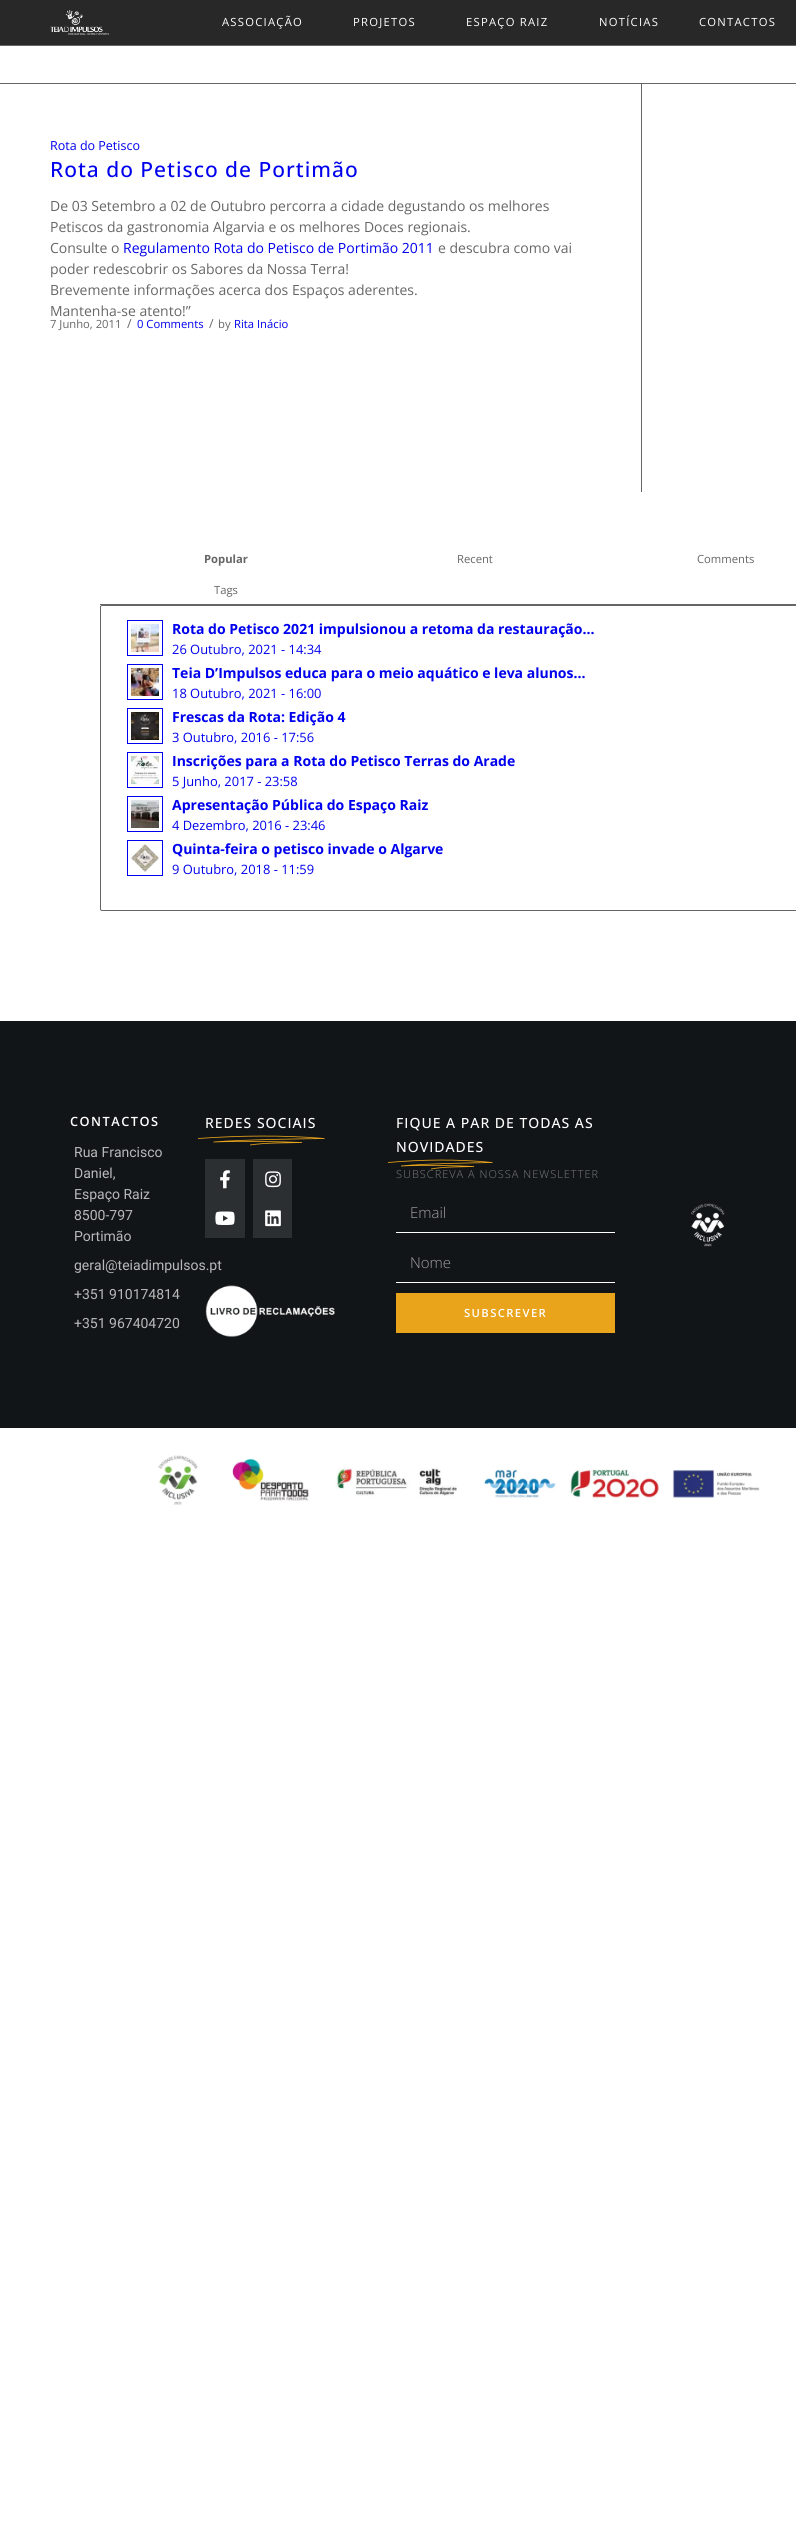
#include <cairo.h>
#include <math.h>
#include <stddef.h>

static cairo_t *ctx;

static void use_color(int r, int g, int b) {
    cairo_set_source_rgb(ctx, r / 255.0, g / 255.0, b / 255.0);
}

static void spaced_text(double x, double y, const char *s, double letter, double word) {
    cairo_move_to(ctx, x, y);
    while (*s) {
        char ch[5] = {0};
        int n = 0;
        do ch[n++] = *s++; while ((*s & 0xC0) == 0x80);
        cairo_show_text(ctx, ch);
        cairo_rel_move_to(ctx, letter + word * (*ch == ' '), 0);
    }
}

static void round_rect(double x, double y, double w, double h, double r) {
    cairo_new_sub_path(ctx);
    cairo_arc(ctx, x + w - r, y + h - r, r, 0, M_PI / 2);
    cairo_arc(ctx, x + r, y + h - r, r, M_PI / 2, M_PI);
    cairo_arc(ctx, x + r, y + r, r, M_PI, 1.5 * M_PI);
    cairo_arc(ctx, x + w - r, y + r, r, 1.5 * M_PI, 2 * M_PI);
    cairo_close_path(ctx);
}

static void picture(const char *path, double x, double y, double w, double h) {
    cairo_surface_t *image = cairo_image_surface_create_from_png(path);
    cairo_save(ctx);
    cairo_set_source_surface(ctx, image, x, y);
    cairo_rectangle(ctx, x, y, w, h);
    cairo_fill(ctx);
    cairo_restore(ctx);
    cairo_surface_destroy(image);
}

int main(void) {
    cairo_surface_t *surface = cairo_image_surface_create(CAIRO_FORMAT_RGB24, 796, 2527);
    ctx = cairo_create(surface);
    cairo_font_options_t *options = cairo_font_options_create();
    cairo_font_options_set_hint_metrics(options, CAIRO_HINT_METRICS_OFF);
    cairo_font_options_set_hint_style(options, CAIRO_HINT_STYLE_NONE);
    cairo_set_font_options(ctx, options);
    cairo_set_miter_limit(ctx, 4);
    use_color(255, 255, 255);
    cairo_paint(ctx);
    use_color(40, 40, 40);
    cairo_rectangle(ctx, 0, 0, 796, 45);
    cairo_fill(ctx);
    picture("img1.png", 50, 10, 59, 25);
    cairo_select_font_face(ctx, "Open Sans", CAIRO_FONT_SLANT_NORMAL, CAIRO_FONT_WEIGHT_NORMAL);
    cairo_set_font_size(ctx, 11.25);
    use_color(255, 255, 255);
    spaced_text(222, 26, "ASSOCIAÇÃO", 1.25, 0);
    spaced_text(353, 26, "PROJETOS", 1.25, 0);
    spaced_text(466, 26, "ESPAÇO RAIZ", 1.25, 0);
    spaced_text(599, 26, "NOTÍCIAS", 1.25, 0);
    spaced_text(699, 26, "CONTACTOS", 1.25, 0);
    use_color(102, 102, 102);
    cairo_rectangle(ctx, 0, 45, 796, 1);
    cairo_fill(ctx);
    cairo_rectangle(ctx, 0, 83, 796, 1);
    cairo_fill(ctx);
    cairo_rectangle(ctx, 641, 84, 1, 408);
    cairo_fill(ctx);
    cairo_set_font_size(ctx, 12.5);
    use_color(0, 0, 238);
    cairo_move_to(ctx, 50, 150);
    cairo_show_text(ctx, "Rota do Petisco");
    cairo_select_font_face(ctx, "Open Sans Medium", CAIRO_FONT_SLANT_NORMAL, CAIRO_FONT_WEIGHT_NORMAL);
    cairo_set_font_size(ctx, 21);
    spaced_text(50, 177, "Rota do Petisco de Portimão", 1, 0);
    cairo_select_font_face(ctx, "Open Sans", CAIRO_FONT_SLANT_NORMAL, CAIRO_FONT_WEIGHT_NORMAL);
    cairo_set_font_size(ctx, 14);
    use_color(102, 102, 102);
    cairo_move_to(ctx, 50, 211);
    cairo_show_text(ctx, "De 03 Setembro a 02 de Outubro percorra a cidade degustando os melhores");
    cairo_move_to(ctx, 50, 232);
    cairo_show_text(ctx, "Petiscos da gastronomia Algarvia e os melhores Doces regionais.");
    cairo_move_to(ctx, 50, 253);
    cairo_show_text(ctx, "Consulte o");
    use_color(0, 0, 238);
    cairo_move_to(ctx, 123, 253);
    cairo_show_text(ctx, "Regulamento Rota do Petisco de Portimão 2011");
    use_color(102, 102, 102);
    cairo_move_to(ctx, 438, 253);
    cairo_show_text(ctx, "e descubra como vai");
    cairo_move_to(ctx, 50, 274);
    cairo_show_text(ctx, "poder redescobrir os Sabores da Nossa Terra!");
    cairo_move_to(ctx, 50, 295);
    cairo_show_text(ctx, "Brevemente informações acerca dos Espaços aderentes.");
    cairo_move_to(ctx, 50, 316);
    cairo_show_text(ctx, "Mantenha-se atento!”");
    cairo_set_font_size(ctx, 11.25);
    cairo_move_to(ctx, 50, 328);
    cairo_show_text(ctx, "7 Junho, 2011");
    cairo_set_font_size(ctx, 12.5);
    cairo_move_to(ctx, 127, 328);
    cairo_show_text(ctx, "/");
    cairo_set_font_size(ctx, 11.25);
    use_color(0, 0, 238);
    cairo_move_to(ctx, 137, 328);
    cairo_show_text(ctx, "0 Comments");
    cairo_set_font_size(ctx, 12.5);
    use_color(102, 102, 102);
    cairo_move_to(ctx, 209, 328);
    cairo_show_text(ctx, "/");
    cairo_set_font_size(ctx, 11.25);
    cairo_move_to(ctx, 218, 328);
    cairo_show_text(ctx, "by");
    use_color(0, 0, 238);
    cairo_move_to(ctx, 234, 328);
    cairo_show_text(ctx, "Rita Inácio");
    use_color(102, 102, 102);
    cairo_rectangle(ctx, 100, 604, 696, 1);
    cairo_fill(ctx);
    cairo_select_font_face(ctx, "Open Sans", CAIRO_FONT_SLANT_NORMAL, CAIRO_FONT_WEIGHT_BOLD);
    cairo_move_to(ctx, 204, 563);
    cairo_show_text(ctx, "Popular");
    cairo_select_font_face(ctx, "Open Sans", CAIRO_FONT_SLANT_NORMAL, CAIRO_FONT_WEIGHT_NORMAL);
    cairo_move_to(ctx, 457, 563);
    cairo_show_text(ctx, "Recent");
    cairo_move_to(ctx, 697, 563);
    cairo_show_text(ctx, "Comments");
    cairo_move_to(ctx, 214, 594);
    cairo_show_text(ctx, "Tags");
    round_rect(100.5, 605.5, 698, 305, 1.5);
    cairo_set_line_width(ctx, 1);
    cairo_stroke(ctx);
    cairo_rectangle(ctx, 127.5, 620.5, 35, 35);
    use_color(0, 0, 238);
    cairo_stroke(ctx);
    picture("img2.png", 131, 624, 28, 28);
    cairo_select_font_face(ctx, "Open Sans", CAIRO_FONT_SLANT_NORMAL, CAIRO_FONT_WEIGHT_BOLD);
    cairo_set_font_size(ctx, 14);
    cairo_move_to(ctx, 172, 634);
    cairo_show_text(ctx, "Rota do Petisco 2021 impulsionou a retoma da restauração...");
    cairo_select_font_face(ctx, "Open Sans", CAIRO_FONT_SLANT_NORMAL, CAIRO_FONT_WEIGHT_NORMAL);
    cairo_set_font_size(ctx, 12.9);
    cairo_move_to(ctx, 172, 654);
    cairo_show_text(ctx, "26 Outubro, 2021 - 14:34");
    cairo_rectangle(ctx, 127.5, 664.5, 35, 35);
    cairo_stroke(ctx);
    picture("img3.png", 131, 668, 28, 28);
    cairo_select_font_face(ctx, "Open Sans", CAIRO_FONT_SLANT_NORMAL, CAIRO_FONT_WEIGHT_BOLD);
    cairo_set_font_size(ctx, 14);
    cairo_move_to(ctx, 172, 678);
    cairo_show_text(ctx, "Teia D’Impulsos educa para o meio aquático e leva alunos...");
    cairo_select_font_face(ctx, "Open Sans", CAIRO_FONT_SLANT_NORMAL, CAIRO_FONT_WEIGHT_NORMAL);
    cairo_set_font_size(ctx, 12.9);
    cairo_move_to(ctx, 172, 698);
    cairo_show_text(ctx, "18 Outubro, 2021 - 16:00");
    cairo_rectangle(ctx, 127.5, 708.5, 35, 35);
    cairo_stroke(ctx);
    picture("img4.png", 131, 712, 28, 28);
    cairo_select_font_face(ctx, "Open Sans", CAIRO_FONT_SLANT_NORMAL, CAIRO_FONT_WEIGHT_BOLD);
    cairo_set_font_size(ctx, 14);
    cairo_move_to(ctx, 172, 722);
    cairo_show_text(ctx, "Frescas da Rota: Edição 4");
    cairo_select_font_face(ctx, "Open Sans", CAIRO_FONT_SLANT_NORMAL, CAIRO_FONT_WEIGHT_NORMAL);
    cairo_set_font_size(ctx, 12.9);
    cairo_move_to(ctx, 172, 742);
    cairo_show_text(ctx, "3 Outubro, 2016 - 17:56");
    cairo_rectangle(ctx, 127.5, 752.5, 35, 35);
    cairo_stroke(ctx);
    picture("img5.png", 131, 756, 28, 28);
    cairo_select_font_face(ctx, "Open Sans", CAIRO_FONT_SLANT_NORMAL, CAIRO_FONT_WEIGHT_BOLD);
    cairo_set_font_size(ctx, 14);
    cairo_move_to(ctx, 172, 766);
    cairo_show_text(ctx, "Inscrições para a Rota do Petisco Terras do Arade");
    cairo_select_font_face(ctx, "Open Sans", CAIRO_FONT_SLANT_NORMAL, CAIRO_FONT_WEIGHT_NORMAL);
    cairo_set_font_size(ctx, 12.9);
    cairo_move_to(ctx, 172, 786);
    cairo_show_text(ctx, "5 Junho, 2017 - 23:58");
    cairo_rectangle(ctx, 127.5, 796.5, 35, 35);
    cairo_stroke(ctx);
    picture("img6.png", 131, 800, 28, 28);
    cairo_select_font_face(ctx, "Open Sans", CAIRO_FONT_SLANT_NORMAL, CAIRO_FONT_WEIGHT_BOLD);
    cairo_set_font_size(ctx, 14);
    cairo_move_to(ctx, 172, 810);
    cairo_show_text(ctx, "Apresentação Pública do Espaço Raiz");
    cairo_select_font_face(ctx, "Open Sans", CAIRO_FONT_SLANT_NORMAL, CAIRO_FONT_WEIGHT_NORMAL);
    cairo_set_font_size(ctx, 12.9);
    cairo_move_to(ctx, 172, 830);
    cairo_show_text(ctx, "4 Dezembro, 2016 - 23:46");
    cairo_rectangle(ctx, 127.5, 840.5, 35, 35);
    cairo_stroke(ctx);
    picture("img7.png", 131, 844, 28, 28);
    cairo_select_font_face(ctx, "Open Sans", CAIRO_FONT_SLANT_NORMAL, CAIRO_FONT_WEIGHT_BOLD);
    cairo_set_font_size(ctx, 14);
    cairo_move_to(ctx, 172, 854);
    cairo_show_text(ctx, "Quinta-feira o petisco invade o Algarve");
    cairo_select_font_face(ctx, "Open Sans", CAIRO_FONT_SLANT_NORMAL, CAIRO_FONT_WEIGHT_NORMAL);
    cairo_set_font_size(ctx, 12.9);
    cairo_move_to(ctx, 172, 874);
    cairo_show_text(ctx, "9 Outubro, 2018 - 11:59");
    use_color(18, 21, 23);
    cairo_rectangle(ctx, 0, 1021, 796, 407);
    cairo_fill(ctx);
    cairo_select_font_face(ctx, "Open Sans SemiBold", CAIRO_FONT_SLANT_NORMAL, CAIRO_FONT_WEIGHT_NORMAL);
    cairo_set_font_size(ctx, 12.75);
    use_color(255, 255, 255);
    spaced_text(70, 1126, "CONTACTOS", 1.5, 0);
    cairo_select_font_face(ctx, "Roboto", CAIRO_FONT_SLANT_NORMAL, CAIRO_FONT_WEIGHT_NORMAL);
    cairo_set_font_size(ctx, 14);
    use_color(184, 185, 185);
    cairo_move_to(ctx, 74, 1157);
    cairo_show_text(ctx, "Rua Francisco");
    cairo_move_to(ctx, 74, 1178);
    cairo_show_text(ctx, "Daniel,");
    cairo_move_to(ctx, 74, 1199);
    cairo_show_text(ctx, "Espaço Raiz");
    cairo_move_to(ctx, 74, 1220);
    cairo_show_text(ctx, "8500-797");
    cairo_move_to(ctx, 74, 1241);
    cairo_show_text(ctx, "Portimão");
    cairo_move_to(ctx, 74, 1270);
    cairo_show_text(ctx, "geral@teiadimpulsos.pt");
    cairo_move_to(ctx, 74, 1299);
    cairo_show_text(ctx, "+351 910174814");
    cairo_move_to(ctx, 74, 1328);
    cairo_show_text(ctx, "+351 967404720");
    cairo_select_font_face(ctx, "Open Sans Medium", CAIRO_FONT_SLANT_NORMAL, CAIRO_FONT_WEIGHT_NORMAL);
    use_color(255, 255, 255);
    spaced_text(205, 1128, "REDES SOCIAIS", 1, 0);
    cairo_new_path(ctx);
    cairo_move_to(ctx, 198, 1138.5);
    cairo_curve_to(ctx, 240, 1135.5, 282.5, 1135, 324.5, 1138.5);
    cairo_curve_to(ctx, 295, 1139, 243, 1139.5, 213.5, 1142);
    cairo_curve_to(ctx, 235.5, 1141, 280.5, 1141.5, 302, 1142.5);
    cairo_curve_to(ctx, 287, 1143, 266, 1142.5, 250, 1145);
    use_color(233, 164, 27);
    cairo_set_line_width(ctx, 0.8);
    cairo_stroke(ctx);
    use_color(44, 47, 49);
    cairo_rectangle(ctx, 205, 1159, 40, 79);
    cairo_fill(ctx);
    picture("img8.png", 220, 1170, 10, 19);
    cairo_rectangle(ctx, 253, 1159, 39, 79);
    cairo_fill(ctx);
    picture("img9.png", 265, 1171, 16, 17);
    picture("img10.png", 215, 1211, 20, 14);
    picture("img11.png", 265, 1210, 16, 17);
    picture("img12.png", 205, 1285, 130, 52);
    use_color(255, 255, 255);
    spaced_text(396, 1128, "FIQUE A PAR DE TODAS AS", 1, 0);
    spaced_text(396, 1152, "NOVIDADES", 1, 0);
    cairo_new_path(ctx);
    cairo_move_to(ctx, 388, 1162.5);
    cairo_curve_to(ctx, 422.5, 1159.5, 457.5, 1159, 492.5, 1162.5);
    cairo_curve_to(ctx, 468, 1163, 425, 1163.5, 401, 1166);
    cairo_curve_to(ctx, 419, 1165, 456, 1165.5, 474, 1166.5);
    cairo_curve_to(ctx, 461.5, 1167, 444, 1166.5, 431, 1169);
    use_color(233, 164, 27);
    cairo_stroke(ctx);
    cairo_select_font_face(ctx, "Open Sans Light", CAIRO_FONT_SLANT_NORMAL, CAIRO_FONT_WEIGHT_NORMAL);
    cairo_set_font_size(ctx, 11);
    use_color(122, 124, 125);
    spaced_text(396, 1178, "SUBSCREVA A NOSSA NEWSLETTER", 1, 0);
    use_color(255, 255, 255);
    cairo_rectangle(ctx, 396, 1232, 219, 1);
    cairo_fill(ctx);
    cairo_set_font_size(ctx, 15);
    use_color(160, 161, 162);
    cairo_move_to(ctx, 410, 1218);
    cairo_show_text(ctx, "Email");
    use_color(255, 255, 255);
    cairo_rectangle(ctx, 396, 1282, 219, 1);
    cairo_fill(ctx);
    use_color(160, 161, 162);
    cairo_move_to(ctx, 410, 1268);
    cairo_show_text(ctx, "Nome");
    use_color(233, 164, 27);
    cairo_rectangle(ctx, 396, 1293, 219, 40);
    cairo_fill(ctx);
    cairo_select_font_face(ctx, "Open Sans SemiBold", CAIRO_FONT_SLANT_NORMAL, CAIRO_FONT_WEIGHT_NORMAL);
    cairo_set_font_size(ctx, 11.25);
    use_color(255, 255, 255);
    spaced_text(464, 1317, "SUBSCREVER", 1.4, 0);
    picture("img13.png", 691, 1203, 34, 44);
    picture("img14.png", 158, 1455, 602, 50);
    cairo_surface_write_to_png(surface, "result.png");
    cairo_font_options_destroy(options);
    cairo_destroy(ctx);
    cairo_surface_destroy(surface);
    return 0;
}
